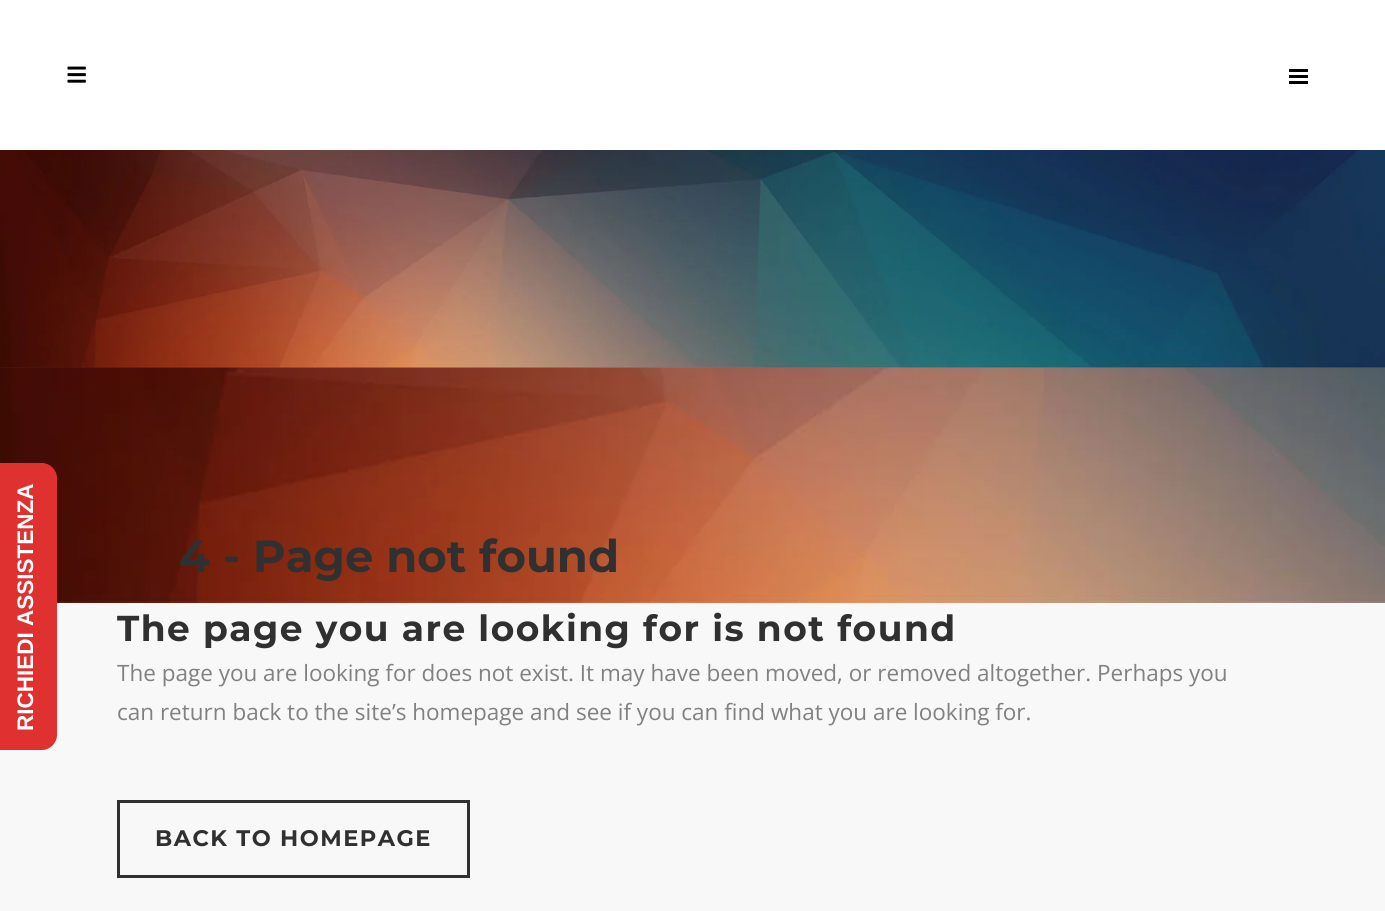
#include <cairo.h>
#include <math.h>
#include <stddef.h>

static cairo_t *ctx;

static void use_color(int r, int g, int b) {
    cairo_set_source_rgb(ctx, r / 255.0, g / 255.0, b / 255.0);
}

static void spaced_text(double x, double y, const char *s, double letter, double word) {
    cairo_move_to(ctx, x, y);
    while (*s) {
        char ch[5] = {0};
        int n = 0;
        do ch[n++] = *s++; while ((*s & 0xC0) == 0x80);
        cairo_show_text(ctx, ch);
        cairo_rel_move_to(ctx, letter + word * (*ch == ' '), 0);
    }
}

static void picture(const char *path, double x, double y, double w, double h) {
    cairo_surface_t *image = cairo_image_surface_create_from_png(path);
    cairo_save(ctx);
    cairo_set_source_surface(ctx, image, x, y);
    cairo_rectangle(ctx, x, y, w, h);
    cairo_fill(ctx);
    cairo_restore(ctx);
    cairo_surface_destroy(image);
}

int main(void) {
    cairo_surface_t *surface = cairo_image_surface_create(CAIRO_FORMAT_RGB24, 1385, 911);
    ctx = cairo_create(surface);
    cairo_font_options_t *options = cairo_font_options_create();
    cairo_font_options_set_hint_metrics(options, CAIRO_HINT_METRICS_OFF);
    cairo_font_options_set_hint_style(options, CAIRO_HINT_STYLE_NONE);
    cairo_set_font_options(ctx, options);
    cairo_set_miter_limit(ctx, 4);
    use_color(248, 248, 248);
    cairo_paint(ctx);
    picture("img2.png", 0, 367, 1385, 236);
    use_color(224, 49, 49);
    cairo_new_path(ctx);
    cairo_move_to(ctx, -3, 750);
    cairo_line_to(ctx, -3, 463);
    cairo_line_to(ctx, 42, 463);
    cairo_curve_to(ctx, 50, 463, 57, 470, 57, 478);
    cairo_line_to(ctx, 57, 735);
    cairo_curve_to(ctx, 57, 743, 50, 750, 42, 750);
    cairo_close_path(ctx);
    cairo_fill(ctx);
    cairo_select_font_face(ctx, "Liberation Sans", CAIRO_FONT_SLANT_NORMAL, CAIRO_FONT_WEIGHT_BOLD);
    cairo_set_font_size(ctx, 22.5);
    use_color(255, 255, 255);
    cairo_save(ctx);
    cairo_translate(ctx, 33, 731);
    cairo_rotate(ctx, -90 * M_PI / 180);
    cairo_move_to(ctx, 0, 0);
    cairo_show_text(ctx, "RICHIEDI ASSISTENZA");
    cairo_restore(ctx);
    cairo_rectangle(ctx, 0, 0, 1385, 150);
    cairo_fill(ctx);
    picture("img1.png", 67, 66, 19, 17);
    use_color(0, 0, 0);
    cairo_rectangle(ctx, 1289, 75, 19, 3);
    cairo_fill(ctx);
    cairo_rectangle(ctx, 1289, 69, 19, 3);
    cairo_fill(ctx);
    cairo_rectangle(ctx, 1289, 81, 19, 3);
    cairo_fill(ctx);
    picture("img3.png", 0, 150, 1385, 218);
    cairo_select_font_face(ctx, "Montserrat", CAIRO_FONT_SLANT_NORMAL, CAIRO_FONT_WEIGHT_BOLD);
    cairo_set_font_size(ctx, 45);
    use_color(48, 48, 48);
    cairo_move_to(ctx, 179, 572);
    cairo_show_text(ctx, "4 - Page not found");
    cairo_set_font_size(ctx, 36);
    spaced_text(117, 641, "The page you are looking for is not found", 1.5, 0);
    cairo_select_font_face(ctx, "Open Sans", CAIRO_FONT_SLANT_NORMAL, CAIRO_FONT_WEIGHT_NORMAL);
    cairo_set_font_size(ctx, 22.5);
    use_color(129, 129, 129);
    cairo_move_to(ctx, 117, 681);
    cairo_show_text(ctx, "The page you are looking for does not exist. It may have been moved, or removed altogether. Perhaps you");
    cairo_move_to(ctx, 117, 720);
    cairo_show_text(ctx, "can return back to the site’s homepage and see if you can find what you are looking for.");
    cairo_rectangle(ctx, 118.5, 801.5, 350, 75);
    use_color(48, 48, 48);
    cairo_set_line_width(ctx, 3);
    cairo_stroke(ctx);
    cairo_select_font_face(ctx, "Montserrat", CAIRO_FONT_SLANT_NORMAL, CAIRO_FONT_WEIGHT_BOLD);
    spaced_text(155, 846, "BACK TO HOMEPAGE", 1.5, 0);
    cairo_surface_write_to_png(surface, "result.png");
    cairo_font_options_destroy(options);
    cairo_destroy(ctx);
    cairo_surface_destroy(surface);
    return 0;
}
